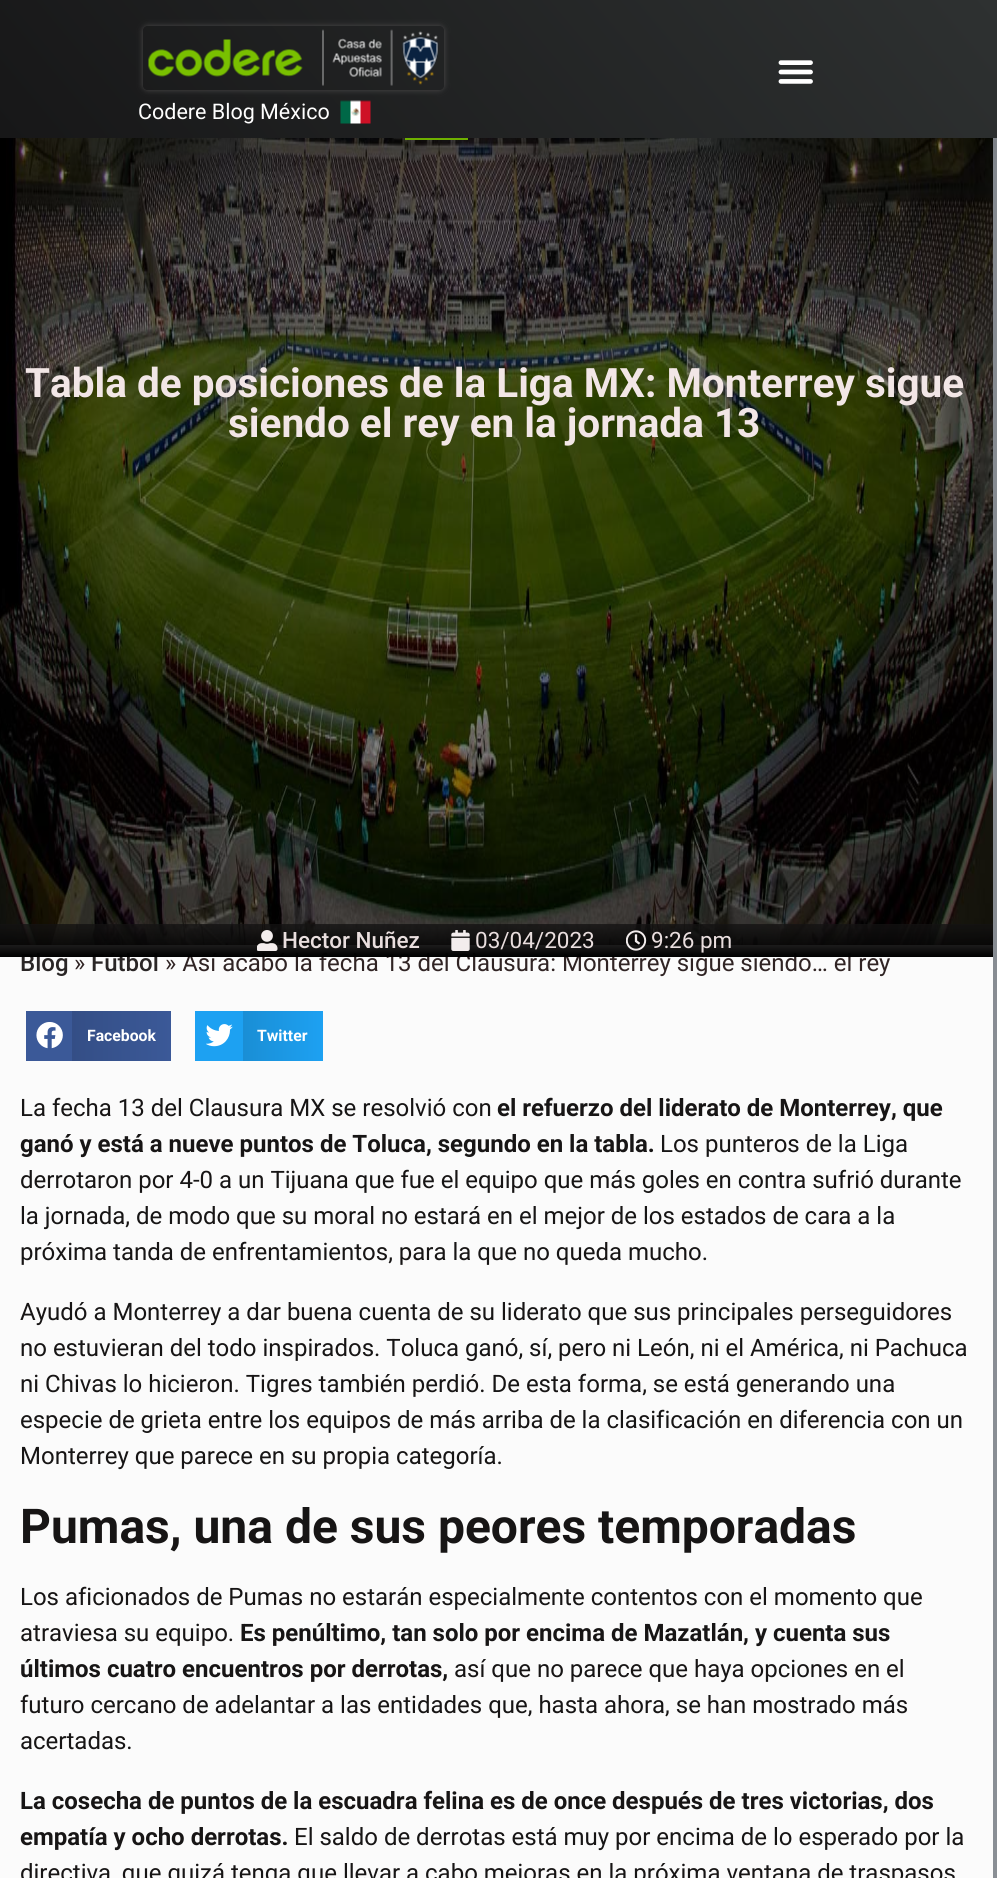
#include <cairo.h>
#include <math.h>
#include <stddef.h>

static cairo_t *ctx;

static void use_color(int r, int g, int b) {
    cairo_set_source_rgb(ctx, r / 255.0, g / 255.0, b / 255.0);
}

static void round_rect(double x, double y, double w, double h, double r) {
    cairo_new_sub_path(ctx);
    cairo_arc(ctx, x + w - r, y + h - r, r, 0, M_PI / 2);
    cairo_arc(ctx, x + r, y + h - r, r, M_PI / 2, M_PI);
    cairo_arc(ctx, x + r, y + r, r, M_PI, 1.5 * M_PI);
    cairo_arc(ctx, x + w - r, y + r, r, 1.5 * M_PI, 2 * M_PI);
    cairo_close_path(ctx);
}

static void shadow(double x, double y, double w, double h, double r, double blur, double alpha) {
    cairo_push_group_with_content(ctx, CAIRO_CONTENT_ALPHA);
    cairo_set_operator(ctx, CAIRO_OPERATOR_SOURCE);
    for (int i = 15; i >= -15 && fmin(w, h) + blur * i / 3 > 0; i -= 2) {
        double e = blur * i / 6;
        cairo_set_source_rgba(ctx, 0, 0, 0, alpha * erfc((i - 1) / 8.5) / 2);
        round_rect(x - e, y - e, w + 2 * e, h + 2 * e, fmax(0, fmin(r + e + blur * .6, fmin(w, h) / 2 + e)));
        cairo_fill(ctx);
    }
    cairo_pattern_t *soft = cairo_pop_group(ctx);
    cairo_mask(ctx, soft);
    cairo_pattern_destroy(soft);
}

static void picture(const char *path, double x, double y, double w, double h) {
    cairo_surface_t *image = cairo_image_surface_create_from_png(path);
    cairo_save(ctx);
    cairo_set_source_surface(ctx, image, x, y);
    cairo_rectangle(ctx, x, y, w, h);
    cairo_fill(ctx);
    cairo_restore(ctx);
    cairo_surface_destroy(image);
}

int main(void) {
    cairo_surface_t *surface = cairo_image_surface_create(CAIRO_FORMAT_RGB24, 997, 1878);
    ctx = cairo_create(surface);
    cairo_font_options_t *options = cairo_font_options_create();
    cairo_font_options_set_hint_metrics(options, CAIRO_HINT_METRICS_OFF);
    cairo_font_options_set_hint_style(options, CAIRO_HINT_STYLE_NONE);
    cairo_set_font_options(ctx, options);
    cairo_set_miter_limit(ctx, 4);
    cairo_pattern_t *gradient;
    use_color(255, 255, 255);
    cairo_paint(ctx);
    picture("img4.png", 0, 138, 993, 807);
    use_color(121, 192, 0);
    cairo_rectangle(ctx, 405, 138, 63, 2);
    cairo_fill(ctx);
    gradient = cairo_pattern_create_linear(499, 128, 499, 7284);
    cairo_pattern_add_color_stop_rgba(gradient, 0, 0.522, 0.541, 0.565, 1);
    cairo_pattern_add_color_stop_rgba(gradient, 1, 0.6, 0.62, 0.643, 1);
    cairo_set_source(ctx, gradient);
    cairo_pattern_destroy(gradient);
    cairo_rectangle(ctx, 993, 138, 4, 1740);
    cairo_fill(ctx);
    use_color(0, 0, 0);
    shadow(0, 15, 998, 138, 0, 15, 0.1);
    gradient = cairo_pattern_create_linear(172, 343, 825, -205);
    cairo_pattern_add_color_stop_rgba(gradient, 0, 0.09, 0.09, 0.094, 1);
    cairo_pattern_add_color_stop_rgba(gradient, 1, 0.18, 0.192, 0.192, 1);
    cairo_set_source(ctx, gradient);
    cairo_pattern_destroy(gradient);
    cairo_rectangle(ctx, 0, 0, 997, 138);
    cairo_fill(ctx);
    picture("img1.png", 778, 60, 35, 24);
    cairo_save(ctx);
    cairo_set_fill_rule(ctx, CAIRO_FILL_RULE_EVEN_ODD);
    cairo_new_path(ctx);
    cairo_move_to(ctx, 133, 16);
    cairo_line_to(ctx, 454, 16);
    cairo_line_to(ctx, 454, 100);
    cairo_line_to(ctx, 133, 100);
    cairo_close_path(ctx);
    cairo_move_to(ctx, 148, 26);
    cairo_line_to(ctx, 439, 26);
    cairo_curve_to(ctx, 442, 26, 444, 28, 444, 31);
    cairo_line_to(ctx, 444, 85);
    cairo_curve_to(ctx, 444, 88, 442, 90, 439, 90);
    cairo_line_to(ctx, 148, 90);
    cairo_curve_to(ctx, 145, 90, 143, 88, 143, 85);
    cairo_line_to(ctx, 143, 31);
    cairo_curve_to(ctx, 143, 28, 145, 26, 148, 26);
    cairo_close_path(ctx);
    cairo_clip(ctx);
    use_color(77, 76, 76);
    shadow(143, 26, 301, 64, 5, 3, 1);
    cairo_restore(ctx);
    picture("img2.png", 148, 29, 291, 57);
    cairo_select_font_face(ctx, "Roboto", CAIRO_FONT_SLANT_NORMAL, CAIRO_FONT_WEIGHT_NORMAL);
    cairo_set_font_size(ctx, 21.5);
    use_color(255, 255, 255);
    cairo_move_to(ctx, 138, 119);
    cairo_show_text(ctx, "Codere Blog México");
    picture("img3.png", 340, 100, 31, 24);
    cairo_select_font_face(ctx, "Roboto", CAIRO_FONT_SLANT_NORMAL, CAIRO_FONT_WEIGHT_BOLD);
    cairo_set_font_size(ctx, 40.5);
    use_color(242, 230, 230);
    cairo_move_to(ctx, 25, 397);
    cairo_show_text(ctx, "Tabla de posiciones de la Liga MX: Monterrey sigue");
    cairo_move_to(ctx, 228, 437);
    cairo_show_text(ctx, "siendo el rey en la jornada 13");
    use_color(251, 251, 251);
    cairo_rectangle(ctx, 0, 945, 993, 933);
    cairo_fill(ctx);
    cairo_select_font_face(ctx, "Roboto Medium", CAIRO_FONT_SLANT_NORMAL, CAIRO_FONT_WEIGHT_NORMAL);
    cairo_set_font_size(ctx, 24);
    use_color(42, 38, 38);
    cairo_move_to(ctx, 20, 971);
    cairo_show_text(ctx, "Blog");
    cairo_select_font_face(ctx, "Roboto", CAIRO_FONT_SLANT_NORMAL, CAIRO_FONT_WEIGHT_NORMAL);
    use_color(48, 36, 36);
    cairo_move_to(ctx, 74, 971);
    cairo_show_text(ctx, "»");
    cairo_select_font_face(ctx, "Roboto Medium", CAIRO_FONT_SLANT_NORMAL, CAIRO_FONT_WEIGHT_NORMAL);
    use_color(42, 38, 38);
    cairo_move_to(ctx, 91, 971);
    cairo_show_text(ctx, "Fútbol");
    cairo_select_font_face(ctx, "Roboto", CAIRO_FONT_SLANT_NORMAL, CAIRO_FONT_WEIGHT_NORMAL);
    use_color(48, 36, 36);
    cairo_move_to(ctx, 165, 971);
    cairo_show_text(ctx, "» Así acabó la fecha 13 del Clausura: Monterrey sigue siendo… el rey");
    use_color(59, 89, 152);
    cairo_rectangle(ctx, 26, 1011, 46, 50);
    cairo_fill(ctx);
    picture("img5.png", 36, 1022, 27, 27);
    gradient = cairo_pattern_create_linear(72, 1036, 171, 1036);
    cairo_pattern_add_color_stop_rgba(gradient, 0, 0.204, 0.306, 0.525, 1);
    cairo_pattern_add_color_stop_rgba(gradient, 1, 0.231, 0.349, 0.596, 1);
    cairo_set_source(ctx, gradient);
    cairo_pattern_destroy(gradient);
    cairo_rectangle(ctx, 72, 1011, 99, 50);
    cairo_fill(ctx);
    cairo_select_font_face(ctx, "Roboto", CAIRO_FONT_SLANT_NORMAL, CAIRO_FONT_WEIGHT_BOLD);
    cairo_set_font_size(ctx, 15.75);
    use_color(255, 255, 255);
    cairo_move_to(ctx, 87, 1041);
    cairo_show_text(ctx, "Facebook");
    use_color(29, 161, 242);
    cairo_rectangle(ctx, 195, 1011, 48, 50);
    cairo_fill(ctx);
    picture("img6.png", 206, 1024, 27, 23);
    gradient = cairo_pattern_create_linear(243, 1036, 323, 1036);
    cairo_pattern_add_color_stop_rgba(gradient, 0, 0.102, 0.557, 0.835, 1);
    cairo_pattern_add_color_stop_rgba(gradient, 1, 0.114, 0.631, 0.949, 1);
    cairo_set_source(ctx, gradient);
    cairo_pattern_destroy(gradient);
    cairo_rectangle(ctx, 243, 1011, 80, 50);
    cairo_fill(ctx);
    use_color(255, 255, 255);
    cairo_move_to(ctx, 257, 1041);
    cairo_show_text(ctx, "Twitter");
    cairo_select_font_face(ctx, "Roboto", CAIRO_FONT_SLANT_NORMAL, CAIRO_FONT_WEIGHT_NORMAL);
    cairo_set_font_size(ctx, 24);
    use_color(23, 21, 21);
    cairo_move_to(ctx, 20, 1116);
    cairo_show_text(ctx, "La fecha 13 del Clausura MX se resolvió con");
    cairo_select_font_face(ctx, "Roboto", CAIRO_FONT_SLANT_NORMAL, CAIRO_FONT_WEIGHT_BOLD);
    cairo_move_to(ctx, 497, 1116);
    cairo_show_text(ctx, "el refuerzo del liderato de Monterrey, que");
    cairo_move_to(ctx, 20, 1152);
    cairo_show_text(ctx, "ganó y está a nueve puntos de Toluca, segundo en la tabla.");
    cairo_select_font_face(ctx, "Roboto", CAIRO_FONT_SLANT_NORMAL, CAIRO_FONT_WEIGHT_NORMAL);
    cairo_move_to(ctx, 660, 1152);
    cairo_show_text(ctx, "Los punteros de la Liga");
    cairo_move_to(ctx, 20, 1188);
    cairo_show_text(ctx, "derrotaron por 4-0 a un Tijuana que fue el equipo que más goles en contra sufrió durante");
    cairo_move_to(ctx, 20, 1224);
    cairo_show_text(ctx, "la jornada, de modo que su moral no estará en el mejor de los estados de cara a la");
    cairo_move_to(ctx, 20, 1260);
    cairo_show_text(ctx, "próxima tanda de enfrentamientos, para la que no queda mucho.");
    cairo_move_to(ctx, 20, 1320);
    cairo_show_text(ctx, "Ayudó a Monterrey a dar buena cuenta de su liderato que sus principales perseguidores");
    cairo_move_to(ctx, 20, 1356);
    cairo_show_text(ctx, "no estuvieran del todo inspirados. Toluca ganó, sí, pero ni León, ni el América, ni Pachuca");
    cairo_move_to(ctx, 20, 1392);
    cairo_show_text(ctx, "ni Chivas lo hicieron. Tigres también perdió. De esta forma, se está generando una");
    cairo_move_to(ctx, 20, 1428);
    cairo_show_text(ctx, "especie de grieta entre los equipos de más arriba de la clasificación en diferencia con un");
    cairo_move_to(ctx, 20, 1464);
    cairo_show_text(ctx, "Monterrey que parece en su propia categoría.");
    cairo_select_font_face(ctx, "Roboto", CAIRO_FONT_SLANT_NORMAL, CAIRO_FONT_WEIGHT_BOLD);
    cairo_set_font_size(ctx, 48);
    cairo_move_to(ctx, 20, 1543);
    cairo_show_text(ctx, "Pumas, una de sus peores temporadas");
    cairo_select_font_face(ctx, "Roboto", CAIRO_FONT_SLANT_NORMAL, CAIRO_FONT_WEIGHT_NORMAL);
    cairo_set_font_size(ctx, 24);
    cairo_move_to(ctx, 20, 1605);
    cairo_show_text(ctx, "Los aficionados de Pumas no estarán especialmente contentos con el momento que");
    cairo_move_to(ctx, 20, 1641);
    cairo_show_text(ctx, "atraviesa su equipo.");
    cairo_select_font_face(ctx, "Roboto", CAIRO_FONT_SLANT_NORMAL, CAIRO_FONT_WEIGHT_BOLD);
    cairo_move_to(ctx, 240, 1641);
    cairo_show_text(ctx, "Es penúltimo, tan solo por encima de Mazatlán, y cuenta sus");
    cairo_move_to(ctx, 20, 1677);
    cairo_show_text(ctx, "últimos cuatro encuentros por derrotas,");
    cairo_select_font_face(ctx, "Roboto", CAIRO_FONT_SLANT_NORMAL, CAIRO_FONT_WEIGHT_NORMAL);
    cairo_move_to(ctx, 454, 1677);
    cairo_show_text(ctx, "así que no parece que haya opciones en el");
    cairo_move_to(ctx, 20, 1713);
    cairo_show_text(ctx, "futuro cercano de adelantar a las entidades que, hasta ahora, se han mostrado más");
    cairo_move_to(ctx, 20, 1749);
    cairo_show_text(ctx, "acertadas.");
    cairo_select_font_face(ctx, "Roboto", CAIRO_FONT_SLANT_NORMAL, CAIRO_FONT_WEIGHT_BOLD);
    cairo_move_to(ctx, 20, 1809);
    cairo_show_text(ctx, "La cosecha de puntos de la escuadra felina es de once después de tres victorias, dos");
    cairo_move_to(ctx, 20, 1845);
    cairo_show_text(ctx, "empatía y ocho derrotas.");
    cairo_select_font_face(ctx, "Roboto", CAIRO_FONT_SLANT_NORMAL, CAIRO_FONT_WEIGHT_NORMAL);
    cairo_move_to(ctx, 294, 1845);
    cairo_show_text(ctx, "El saldo de derrotas está muy por encima de lo esperado por la");
    cairo_move_to(ctx, 20, 1881);
    cairo_show_text(ctx, "directiva, que quizá tenga que llevar a cabo mejoras en la próxima ventana de traspasos");
    gradient = cairo_pattern_create_linear(494, 924, 494, 957);
    cairo_pattern_add_color_stop_rgba(gradient, 0, 0.075, 0.071, 0.071, 0.77);
    cairo_pattern_add_color_stop_rgba(gradient, 1, 0, 0, 0, 1);
    cairo_set_source(ctx, gradient);
    cairo_pattern_destroy(gradient);
    cairo_rectangle(ctx, 0, 924, 993, 33);
    cairo_fill(ctx);
    picture("img7.png", 257, 930, 21, 21);
    cairo_select_font_face(ctx, "Roboto Medium", CAIRO_FONT_SLANT_NORMAL, CAIRO_FONT_WEIGHT_NORMAL);
    cairo_set_font_size(ctx, 22.5);
    use_color(233, 222, 222);
    cairo_move_to(ctx, 282, 948);
    cairo_show_text(ctx, "Hector Nuñez");
    picture("img8.png", 451, 930, 19, 21);
    cairo_select_font_face(ctx, "Roboto", CAIRO_FONT_SLANT_NORMAL, CAIRO_FONT_WEIGHT_NORMAL);
    cairo_move_to(ctx, 475, 948);
    cairo_show_text(ctx, "03/04/2023");
    picture("img9.png", 626, 930, 21, 21);
    cairo_move_to(ctx, 651, 948);
    cairo_show_text(ctx, "9:26 pm");
    cairo_surface_write_to_png(surface, "result.png");
    cairo_font_options_destroy(options);
    cairo_destroy(ctx);
    cairo_surface_destroy(surface);
    return 0;
}
